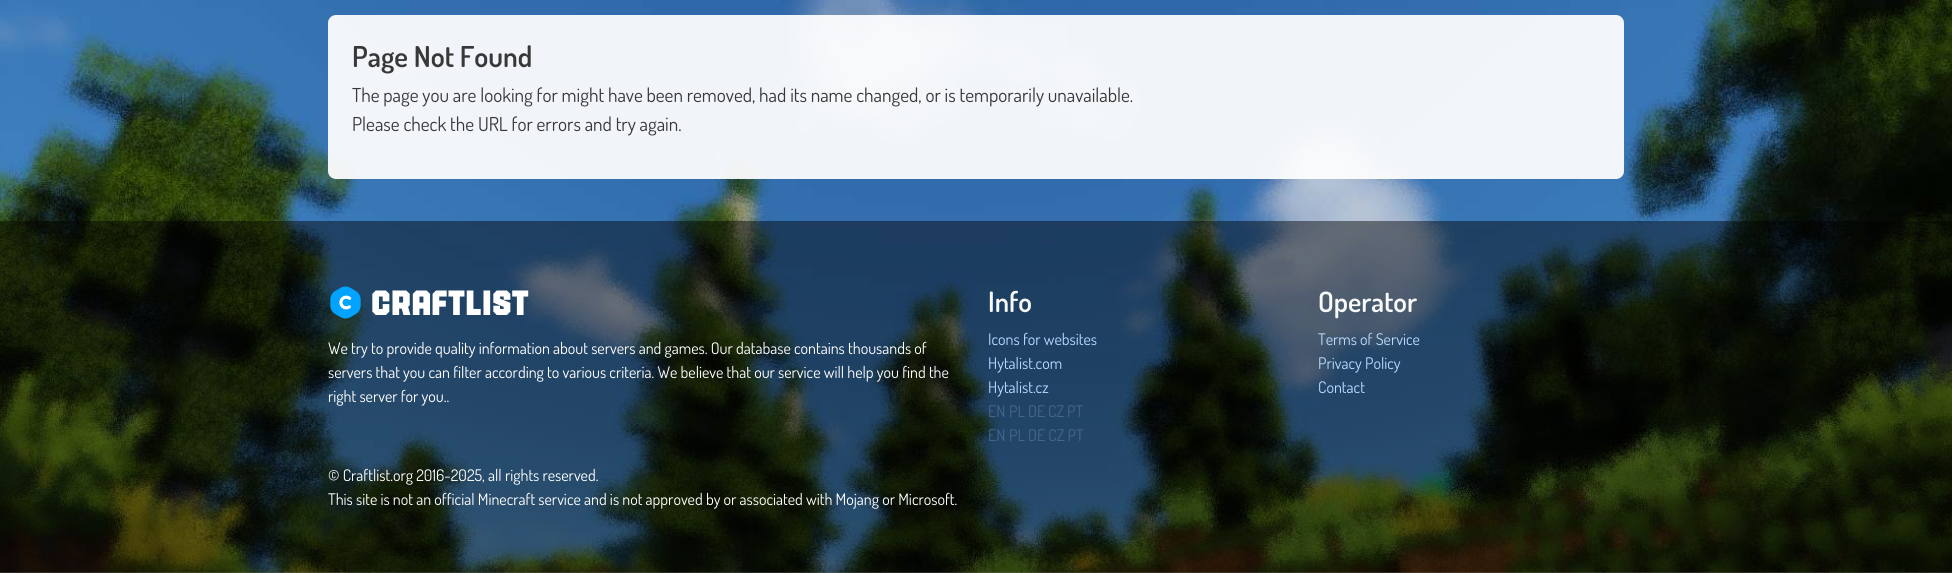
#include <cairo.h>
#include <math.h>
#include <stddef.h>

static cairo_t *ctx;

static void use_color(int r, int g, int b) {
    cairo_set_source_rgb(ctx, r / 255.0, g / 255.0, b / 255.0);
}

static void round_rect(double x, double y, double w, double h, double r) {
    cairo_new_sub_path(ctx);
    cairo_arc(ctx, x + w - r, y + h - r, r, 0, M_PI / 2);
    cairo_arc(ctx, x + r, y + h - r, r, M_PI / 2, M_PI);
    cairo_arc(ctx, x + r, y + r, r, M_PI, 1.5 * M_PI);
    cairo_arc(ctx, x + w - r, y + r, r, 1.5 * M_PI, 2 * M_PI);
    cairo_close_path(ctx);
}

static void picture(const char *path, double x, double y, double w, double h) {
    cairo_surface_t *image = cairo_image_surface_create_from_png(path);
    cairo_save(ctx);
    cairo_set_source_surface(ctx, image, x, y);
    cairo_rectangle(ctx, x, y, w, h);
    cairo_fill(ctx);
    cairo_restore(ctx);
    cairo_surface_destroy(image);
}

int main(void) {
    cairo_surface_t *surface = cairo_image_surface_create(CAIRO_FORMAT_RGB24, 1952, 573);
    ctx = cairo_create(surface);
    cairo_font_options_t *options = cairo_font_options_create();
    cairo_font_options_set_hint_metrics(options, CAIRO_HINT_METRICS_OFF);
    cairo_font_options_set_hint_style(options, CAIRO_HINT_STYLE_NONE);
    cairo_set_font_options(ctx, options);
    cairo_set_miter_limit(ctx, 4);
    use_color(255, 255, 255);
    cairo_paint(ctx);
    picture("img1.png", 0, 0, 1952, 573);
    cairo_set_source_rgba(ctx, 1, 1, 1, 0.93);
    round_rect(328, 15, 1296, 164, 8);
    cairo_fill(ctx);
    cairo_select_font_face(ctx, "Dosis SemiBold", CAIRO_FONT_SLANT_NORMAL, CAIRO_FONT_WEIGHT_NORMAL);
    cairo_set_font_size(ctx, 28.75);
    use_color(56, 56, 56);
    cairo_move_to(ctx, 352, 67);
    cairo_show_text(ctx, "Page Not Found");
    cairo_select_font_face(ctx, "Dosis", CAIRO_FONT_SLANT_NORMAL, CAIRO_FONT_WEIGHT_NORMAL);
    cairo_set_font_size(ctx, 19.2);
    cairo_move_to(ctx, 352, 102);
    cairo_show_text(ctx, "The page you are looking for might have been removed, had its name changed, or is temporarily unavailable.");
    cairo_move_to(ctx, 352, 131);
    cairo_show_text(ctx, "Please check the URL for errors and try again.");
    cairo_set_source_rgba(ctx, 0, 0, 0, 0.45);
    cairo_rectangle(ctx, 0, 221, 1952, 352);
    cairo_fill(ctx);
    picture("img2.png", 330, 286, 31, 33);
    cairo_select_font_face(ctx, "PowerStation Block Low", CAIRO_FONT_SLANT_NORMAL, CAIRO_FONT_WEIGHT_NORMAL);
    cairo_set_font_size(ctx, 35);
    use_color(255, 255, 255);
    cairo_move_to(ctx, 371, 315);
    cairo_show_text(ctx, "CRAFTLIST");
    cairo_select_font_face(ctx, "Dosis", CAIRO_FONT_SLANT_NORMAL, CAIRO_FONT_WEIGHT_NORMAL);
    cairo_set_font_size(ctx, 16);
    cairo_move_to(ctx, 328, 354);
    cairo_show_text(ctx, "We try to provide quality information about servers and games. Our database contains thousands of");
    cairo_move_to(ctx, 328, 378);
    cairo_show_text(ctx, "servers that you can filter according to various criteria. We believe that our service will help you find the");
    cairo_move_to(ctx, 328, 402);
    cairo_show_text(ctx, "right server for you..");
    cairo_select_font_face(ctx, "Dosis SemiBold", CAIRO_FONT_SLANT_NORMAL, CAIRO_FONT_WEIGHT_NORMAL);
    cairo_set_font_size(ctx, 28);
    use_color(248, 249, 250);
    cairo_move_to(ctx, 988, 312);
    cairo_show_text(ctx, "Info");
    cairo_select_font_face(ctx, "Dosis", CAIRO_FONT_SLANT_NORMAL, CAIRO_FONT_WEIGHT_NORMAL);
    cairo_set_font_size(ctx, 16);
    use_color(184, 218, 255);
    cairo_move_to(ctx, 988, 345);
    cairo_show_text(ctx, "Icons for websites");
    cairo_move_to(ctx, 988, 369);
    cairo_show_text(ctx, "Hytalist.com");
    cairo_move_to(ctx, 988, 393);
    cairo_show_text(ctx, "Hytalist.cz");
    use_color(69, 103, 138);
    cairo_move_to(ctx, 988, 417);
    cairo_show_text(ctx, "EN");
    cairo_move_to(ctx, 1009, 417);
    cairo_show_text(ctx, "PL");
    cairo_move_to(ctx, 1028, 417);
    cairo_show_text(ctx, "DE");
    cairo_move_to(ctx, 1048, 417);
    cairo_show_text(ctx, "CZ");
    cairo_move_to(ctx, 1067, 417);
    cairo_show_text(ctx, "PT");
    cairo_move_to(ctx, 988, 441);
    cairo_show_text(ctx, "EN");
    cairo_move_to(ctx, 1009, 441);
    cairo_show_text(ctx, "PL DE CZ PT");
    cairo_select_font_face(ctx, "Dosis SemiBold", CAIRO_FONT_SLANT_NORMAL, CAIRO_FONT_WEIGHT_NORMAL);
    cairo_set_font_size(ctx, 28);
    use_color(248, 249, 250);
    cairo_move_to(ctx, 1318, 312);
    cairo_show_text(ctx, "Operator");
    cairo_select_font_face(ctx, "Dosis", CAIRO_FONT_SLANT_NORMAL, CAIRO_FONT_WEIGHT_NORMAL);
    cairo_set_font_size(ctx, 16);
    use_color(184, 218, 255);
    cairo_move_to(ctx, 1318, 345);
    cairo_show_text(ctx, "Terms of Service");
    cairo_move_to(ctx, 1318, 369);
    cairo_show_text(ctx, "Privacy Policy");
    cairo_move_to(ctx, 1318, 393);
    cairo_show_text(ctx, "Contact");
    use_color(255, 255, 255);
    cairo_move_to(ctx, 328, 481);
    cairo_show_text(ctx, "© Craftlist.org 2016-2025, all rights reserved.");
    cairo_move_to(ctx, 328, 505);
    cairo_show_text(ctx, "This site is not an official Minecraft service and is not approved by or associated with Mojang or Microsoft.");
    cairo_surface_write_to_png(surface, "result.png");
    cairo_font_options_destroy(options);
    cairo_destroy(ctx);
    cairo_surface_destroy(surface);
    return 0;
}
